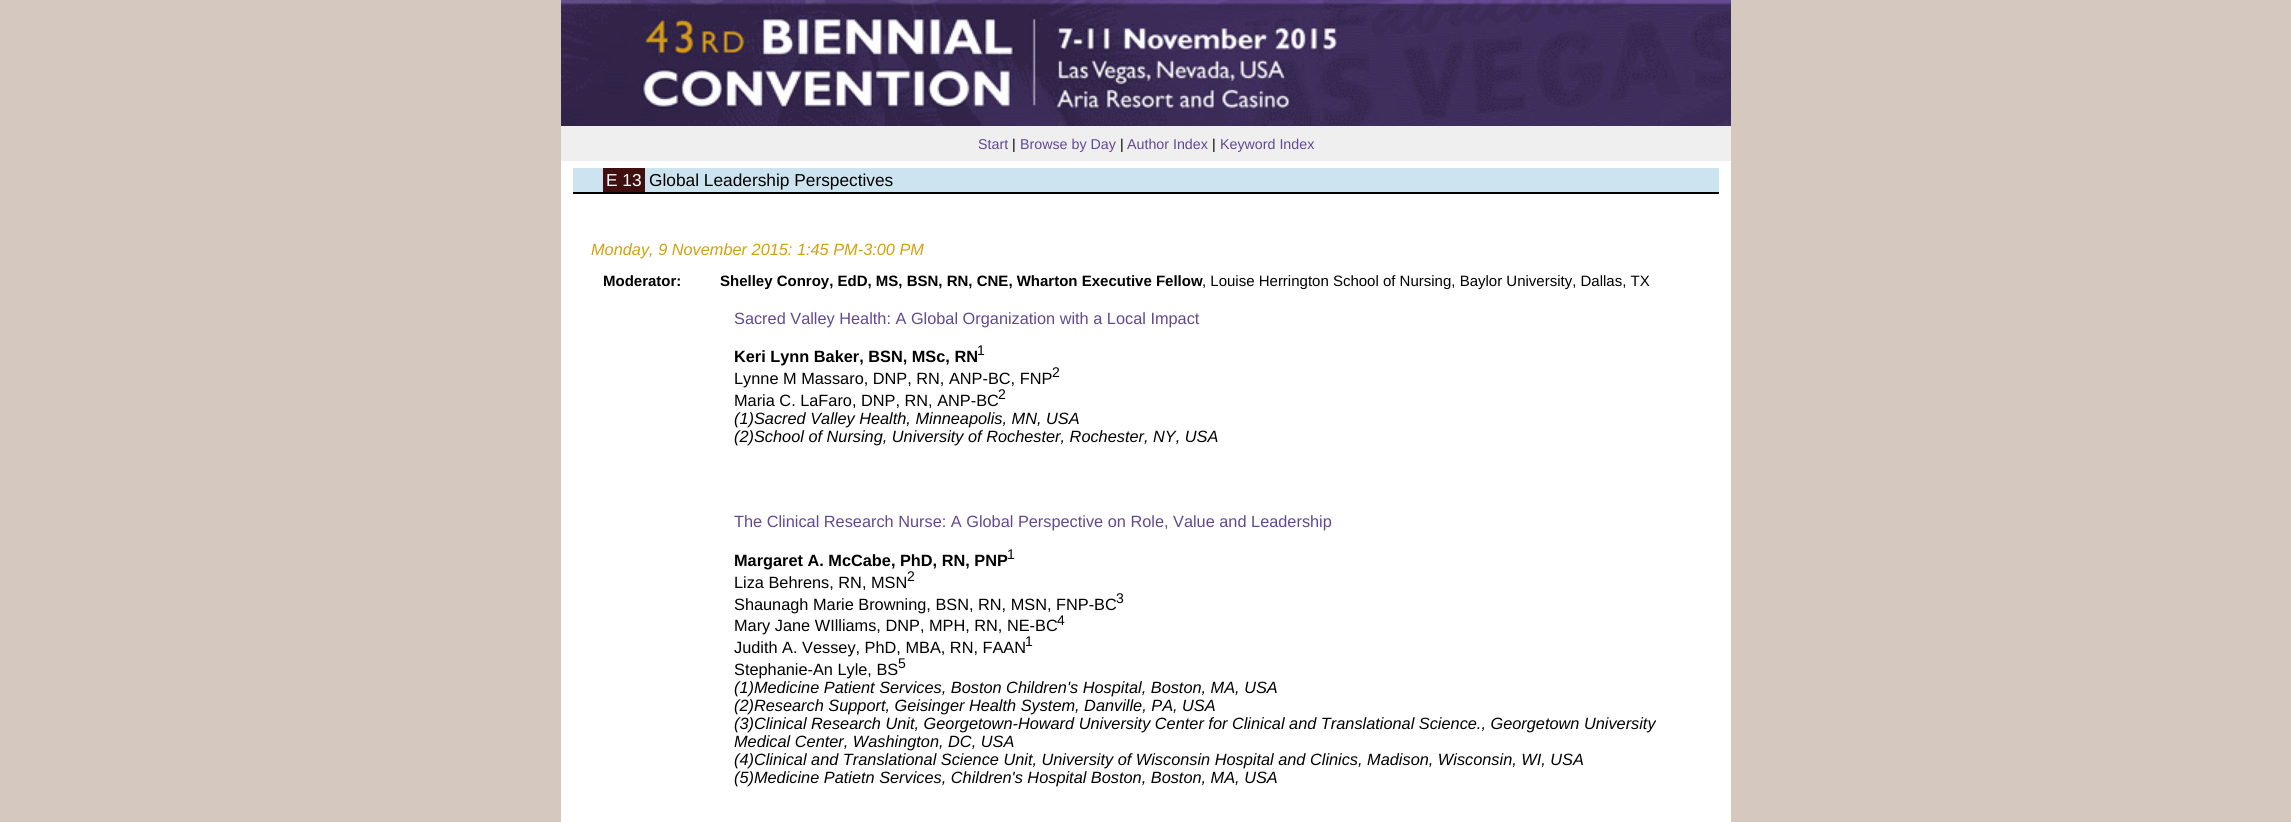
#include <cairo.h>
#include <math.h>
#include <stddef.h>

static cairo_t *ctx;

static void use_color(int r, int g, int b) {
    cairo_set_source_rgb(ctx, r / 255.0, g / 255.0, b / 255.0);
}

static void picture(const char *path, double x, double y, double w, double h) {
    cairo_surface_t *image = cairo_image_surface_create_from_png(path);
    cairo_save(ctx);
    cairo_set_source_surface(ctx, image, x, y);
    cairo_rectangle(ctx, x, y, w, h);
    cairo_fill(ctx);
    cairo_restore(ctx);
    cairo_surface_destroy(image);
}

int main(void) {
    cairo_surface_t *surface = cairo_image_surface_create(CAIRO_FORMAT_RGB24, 2291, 822);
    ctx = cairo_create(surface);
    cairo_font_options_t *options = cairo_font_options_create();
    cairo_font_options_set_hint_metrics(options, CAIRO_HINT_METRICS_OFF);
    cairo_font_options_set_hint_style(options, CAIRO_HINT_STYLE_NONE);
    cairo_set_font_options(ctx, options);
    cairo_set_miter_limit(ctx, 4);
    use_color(212, 200, 191);
    cairo_paint(ctx);
    use_color(255, 255, 255);
    cairo_rectangle(ctx, 561, 161, 1170, 661);
    cairo_fill(ctx);
    picture("img1.png", 561, 0, 1170, 126);
    use_color(239, 239, 239);
    cairo_rectangle(ctx, 561, 126, 1170, 35);
    cairo_fill(ctx);
    cairo_select_font_face(ctx, "Liberation Sans", CAIRO_FONT_SLANT_NORMAL, CAIRO_FONT_WEIGHT_NORMAL);
    cairo_set_font_size(ctx, 14.25);
    use_color(98, 72, 146);
    cairo_move_to(ctx, 978, 149);
    cairo_show_text(ctx, "Start");
    use_color(0, 0, 0);
    cairo_move_to(ctx, 1012, 149);
    cairo_show_text(ctx, "|");
    use_color(98, 72, 146);
    cairo_move_to(ctx, 1020, 149);
    cairo_show_text(ctx, "Browse by Day");
    use_color(0, 0, 0);
    cairo_move_to(ctx, 1120, 149);
    cairo_show_text(ctx, "|");
    use_color(98, 72, 146);
    cairo_move_to(ctx, 1127, 149);
    cairo_show_text(ctx, "Author Index");
    use_color(0, 0, 0);
    cairo_move_to(ctx, 1212, 149);
    cairo_show_text(ctx, "|");
    use_color(98, 72, 146);
    cairo_move_to(ctx, 1220, 149);
    cairo_show_text(ctx, "Keyword Index");
    use_color(204, 228, 240);
    cairo_rectangle(ctx, 573, 168, 1146, 24);
    cairo_fill(ctx);
    use_color(0, 0, 0);
    cairo_rectangle(ctx, 573, 192, 1146, 2);
    cairo_fill(ctx);
    use_color(64, 16, 16);
    cairo_rectangle(ctx, 603, 168, 42, 24);
    cairo_fill(ctx);
    cairo_set_font_size(ctx, 17.3);
    use_color(255, 255, 255);
    cairo_move_to(ctx, 606, 186);
    cairo_show_text(ctx, "E 13");
    use_color(0, 0, 0);
    cairo_move_to(ctx, 649, 186);
    cairo_show_text(ctx, "Global Leadership Perspectives");
    cairo_select_font_face(ctx, "Liberation Sans", CAIRO_FONT_SLANT_ITALIC, CAIRO_FONT_WEIGHT_NORMAL);
    cairo_set_font_size(ctx, 16.32);
    use_color(211, 158, 15);
    cairo_move_to(ctx, 591, 255);
    cairo_show_text(ctx, "Monday, 9 November 2015: 1:45 PM-3:00 PM");
    cairo_select_font_face(ctx, "Liberation Sans", CAIRO_FONT_SLANT_NORMAL, CAIRO_FONT_WEIGHT_BOLD);
    cairo_set_font_size(ctx, 15);
    use_color(0, 0, 0);
    cairo_move_to(ctx, 603, 286);
    cairo_show_text(ctx, "Moderator:");
    cairo_move_to(ctx, 720, 286);
    cairo_show_text(ctx, "Shelley Conroy, EdD, MS, BSN, RN, CNE, Wharton Executive Fellow");
    cairo_select_font_face(ctx, "Liberation Sans", CAIRO_FONT_SLANT_NORMAL, CAIRO_FONT_WEIGHT_NORMAL);
    cairo_move_to(ctx, 1202, 286);
    cairo_show_text(ctx, ", Louise Herrington School of Nursing, Baylor University, Dallas, TX");
    cairo_set_font_size(ctx, 16.32);
    use_color(98, 72, 146);
    cairo_move_to(ctx, 734, 324);
    cairo_show_text(ctx, "Sacred Valley Health: A Global Organization with a Local Impact");
    cairo_select_font_face(ctx, "Liberation Sans", CAIRO_FONT_SLANT_NORMAL, CAIRO_FONT_WEIGHT_BOLD);
    use_color(0, 0, 0);
    cairo_move_to(ctx, 734, 362);
    cairo_show_text(ctx, "Keri Lynn Baker, BSN, MSc, RN");
    cairo_select_font_face(ctx, "Liberation Sans", CAIRO_FONT_SLANT_NORMAL, CAIRO_FONT_WEIGHT_NORMAL);
    cairo_set_font_size(ctx, 14);
    cairo_move_to(ctx, 977, 355);
    cairo_show_text(ctx, "1");
    cairo_set_font_size(ctx, 16.32);
    cairo_move_to(ctx, 734, 384);
    cairo_show_text(ctx, "Lynne M Massaro, DNP, RN, ANP-BC, FNP");
    cairo_set_font_size(ctx, 14);
    cairo_move_to(ctx, 1052, 377);
    cairo_show_text(ctx, "2");
    cairo_set_font_size(ctx, 16.32);
    cairo_move_to(ctx, 734, 406);
    cairo_show_text(ctx, "Maria C. LaFaro, DNP, RN, ANP-BC");
    cairo_set_font_size(ctx, 14);
    cairo_move_to(ctx, 998, 399);
    cairo_show_text(ctx, "2");
    cairo_select_font_face(ctx, "Liberation Sans", CAIRO_FONT_SLANT_ITALIC, CAIRO_FONT_WEIGHT_NORMAL);
    cairo_set_font_size(ctx, 16.32);
    cairo_move_to(ctx, 734, 424);
    cairo_show_text(ctx, "(1)Sacred Valley Health, Minneapolis, MN, USA");
    cairo_move_to(ctx, 734, 442);
    cairo_show_text(ctx, "(2)School of Nursing, University of Rochester, Rochester, NY, USA");
    cairo_select_font_face(ctx, "Liberation Sans", CAIRO_FONT_SLANT_NORMAL, CAIRO_FONT_WEIGHT_NORMAL);
    use_color(98, 72, 146);
    cairo_move_to(ctx, 734, 527);
    cairo_show_text(ctx, "The Clinical Research Nurse: A Global Perspective on Role, Value and Leadership");
    cairo_select_font_face(ctx, "Liberation Sans", CAIRO_FONT_SLANT_NORMAL, CAIRO_FONT_WEIGHT_BOLD);
    use_color(0, 0, 0);
    cairo_move_to(ctx, 734, 566);
    cairo_show_text(ctx, "Margaret A. McCabe, PhD, RN, PNP");
    cairo_select_font_face(ctx, "Liberation Sans", CAIRO_FONT_SLANT_NORMAL, CAIRO_FONT_WEIGHT_NORMAL);
    cairo_set_font_size(ctx, 14);
    cairo_move_to(ctx, 1007, 559);
    cairo_show_text(ctx, "1");
    cairo_set_font_size(ctx, 16.32);
    cairo_move_to(ctx, 734, 588);
    cairo_show_text(ctx, "Liza Behrens, RN, MSN");
    cairo_set_font_size(ctx, 14);
    cairo_move_to(ctx, 907, 581);
    cairo_show_text(ctx, "2");
    cairo_set_font_size(ctx, 16.32);
    cairo_move_to(ctx, 734, 610);
    cairo_show_text(ctx, "Shaunagh Marie Browning, BSN, RN, MSN, FNP-BC");
    cairo_set_font_size(ctx, 14);
    cairo_move_to(ctx, 1116, 603);
    cairo_show_text(ctx, "3");
    cairo_set_font_size(ctx, 16.32);
    cairo_move_to(ctx, 734, 631);
    cairo_show_text(ctx, "Mary Jane WIlliams, DNP, MPH, RN, NE-BC");
    cairo_set_font_size(ctx, 14);
    cairo_move_to(ctx, 1057, 625);
    cairo_show_text(ctx, "4");
    cairo_set_font_size(ctx, 16.32);
    cairo_move_to(ctx, 734, 653);
    cairo_show_text(ctx, "Judith A. Vessey, PhD, MBA, RN, FAAN");
    cairo_set_font_size(ctx, 14);
    cairo_move_to(ctx, 1025, 646);
    cairo_show_text(ctx, "1");
    cairo_set_font_size(ctx, 16.32);
    cairo_move_to(ctx, 734, 675);
    cairo_show_text(ctx, "Stephanie-An Lyle, BS");
    cairo_set_font_size(ctx, 14);
    cairo_move_to(ctx, 898, 668);
    cairo_show_text(ctx, "5");
    cairo_select_font_face(ctx, "Liberation Sans", CAIRO_FONT_SLANT_ITALIC, CAIRO_FONT_WEIGHT_NORMAL);
    cairo_set_font_size(ctx, 16.32);
    cairo_move_to(ctx, 734, 693);
    cairo_show_text(ctx, "(1)Medicine Patient Services, Boston Children's Hospital, Boston, MA, USA");
    cairo_move_to(ctx, 734, 711);
    cairo_show_text(ctx, "(2)Research Support, Geisinger Health System, Danville, PA, USA");
    cairo_move_to(ctx, 734, 729);
    cairo_show_text(ctx, "(3)Clinical Research Unit, Georgetown-Howard University Center for Clinical and Translational Science., Georgetown University");
    cairo_move_to(ctx, 734, 747);
    cairo_show_text(ctx, "Medical Center, Washington, DC, USA");
    cairo_move_to(ctx, 734, 765);
    cairo_show_text(ctx, "(4)Clinical and Translational Science Unit, University of Wisconsin Hospital and Clinics, Madison, Wisconsin, WI, USA");
    cairo_move_to(ctx, 734, 783);
    cairo_show_text(ctx, "(5)Medicine Patietn Services, Children's Hospital Boston, Boston, MA, USA");
    cairo_surface_write_to_png(surface, "result.png");
    cairo_font_options_destroy(options);
    cairo_destroy(ctx);
    cairo_surface_destroy(surface);
    return 0;
}
